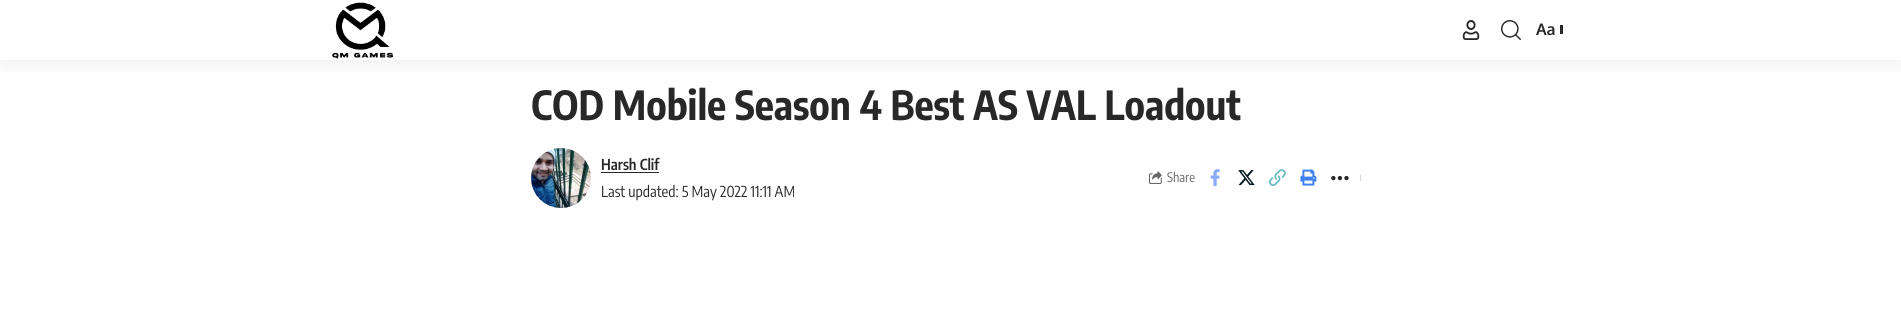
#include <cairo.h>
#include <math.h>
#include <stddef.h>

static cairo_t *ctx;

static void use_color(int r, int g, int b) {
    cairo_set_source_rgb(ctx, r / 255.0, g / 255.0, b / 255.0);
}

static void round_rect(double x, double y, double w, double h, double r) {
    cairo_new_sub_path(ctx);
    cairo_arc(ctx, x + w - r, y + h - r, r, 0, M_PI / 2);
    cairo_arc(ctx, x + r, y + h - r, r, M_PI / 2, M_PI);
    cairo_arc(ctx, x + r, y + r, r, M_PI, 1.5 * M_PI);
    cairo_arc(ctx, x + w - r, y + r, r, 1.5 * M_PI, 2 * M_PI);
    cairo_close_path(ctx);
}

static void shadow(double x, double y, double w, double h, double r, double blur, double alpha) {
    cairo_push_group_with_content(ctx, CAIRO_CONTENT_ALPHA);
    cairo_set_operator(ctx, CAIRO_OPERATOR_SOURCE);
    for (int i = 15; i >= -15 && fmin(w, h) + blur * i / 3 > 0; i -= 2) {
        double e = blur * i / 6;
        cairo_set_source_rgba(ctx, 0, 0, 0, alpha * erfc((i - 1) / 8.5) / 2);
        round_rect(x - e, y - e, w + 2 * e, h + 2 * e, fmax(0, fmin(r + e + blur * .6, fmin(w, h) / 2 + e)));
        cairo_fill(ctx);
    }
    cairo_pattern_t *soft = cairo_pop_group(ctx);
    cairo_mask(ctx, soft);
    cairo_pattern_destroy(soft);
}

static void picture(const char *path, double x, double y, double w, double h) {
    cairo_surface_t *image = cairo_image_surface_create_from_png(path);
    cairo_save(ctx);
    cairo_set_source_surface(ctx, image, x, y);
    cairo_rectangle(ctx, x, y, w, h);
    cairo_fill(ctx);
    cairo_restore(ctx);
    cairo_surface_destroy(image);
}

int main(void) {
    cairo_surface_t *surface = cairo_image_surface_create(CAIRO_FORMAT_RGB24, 1901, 325);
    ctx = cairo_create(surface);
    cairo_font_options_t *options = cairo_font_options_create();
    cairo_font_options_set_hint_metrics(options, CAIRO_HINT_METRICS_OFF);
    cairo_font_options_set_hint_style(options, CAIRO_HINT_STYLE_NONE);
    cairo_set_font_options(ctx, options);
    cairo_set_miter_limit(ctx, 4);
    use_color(255, 255, 255);
    cairo_paint(ctx);
    cairo_save(ctx);
    cairo_rectangle(ctx, 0, 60, 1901, 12);
    cairo_clip(ctx);
    use_color(0, 0, 0);
    shadow(0, 4, 1901, 60, 0, 15, 0.07);
    cairo_restore(ctx);
    picture("img1.png", 332, 2, 62, 57);
    picture("img2.png", 1462, 20, 18, 20);
    picture("img3.png", 1501, 20, 20, 20);
    cairo_select_font_face(ctx, "Oxygen", CAIRO_FONT_SLANT_NORMAL, CAIRO_FONT_WEIGHT_BOLD);
    cairo_set_font_size(ctx, 16);
    use_color(40, 40, 40);
    cairo_move_to(ctx, 1536, 35);
    cairo_show_text(ctx, "Aa");
    cairo_rectangle(ctx, 1560, 25, 3, 9);
    cairo_fill(ctx);
    cairo_select_font_face(ctx, "Encode Sans Condensed", CAIRO_FONT_SLANT_NORMAL, CAIRO_FONT_WEIGHT_BOLD);
    cairo_set_font_size(ctx, 40);
    cairo_move_to(ctx, 531, 120);
    cairo_show_text(ctx, "COD Mobile Season 4 Best AS VAL Loadout");
    picture("img4.png", 531, 148, 60, 60);
    cairo_select_font_face(ctx, "Encode Sans Condensed SemiBold", CAIRO_FONT_SLANT_NORMAL, CAIRO_FONT_WEIGHT_NORMAL);
    cairo_set_font_size(ctx, 15);
    cairo_move_to(ctx, 601, 170);
    cairo_show_text(ctx, "Harsh Clif");
    cairo_rectangle(ctx, 601, 172, 58, 1);
    cairo_fill(ctx);
    cairo_select_font_face(ctx, "Encode Sans Condensed", CAIRO_FONT_SLANT_NORMAL, CAIRO_FONT_WEIGHT_NORMAL);
    cairo_move_to(ctx, 601, 197);
    cairo_show_text(ctx, "Last updated: 5 May 2022 11:11 AM");
    picture("img5.png", 1149, 171, 13, 13);
    cairo_set_font_size(ctx, 13);
    use_color(102, 102, 102);
    cairo_move_to(ctx, 1167, 182);
    cairo_show_text(ctx, "Share");
    picture("img6.png", 1210, 169, 10, 17);
    picture("img7.png", 1238, 170, 17, 16);
    picture("img8.png", 1269, 169, 17, 17);
    picture("img9.png", 1300, 169, 17, 17);
    picture("img10.png", 1331, 175, 18, 6);
    use_color(217, 217, 217);
    cairo_rectangle(ctx, 1360, 175, 1, 6);
    cairo_fill(ctx);
    cairo_surface_write_to_png(surface, "result.png");
    cairo_font_options_destroy(options);
    cairo_destroy(ctx);
    cairo_surface_destroy(surface);
    return 0;
}
